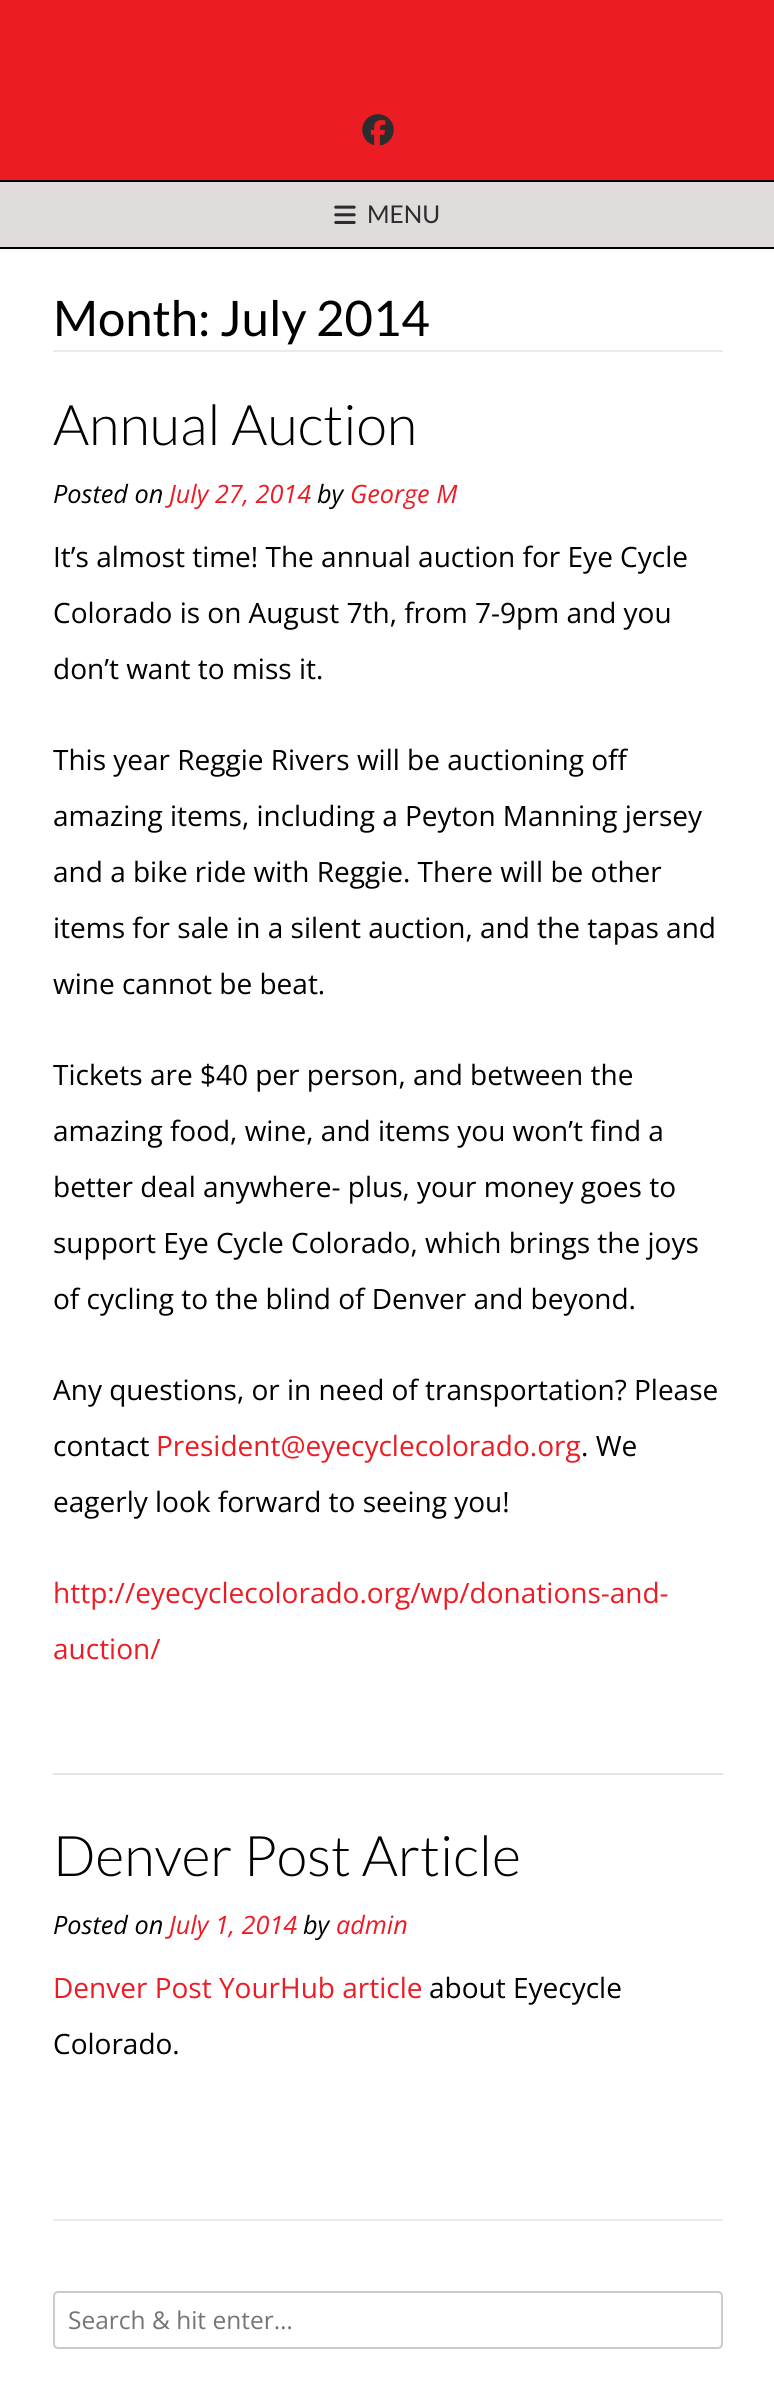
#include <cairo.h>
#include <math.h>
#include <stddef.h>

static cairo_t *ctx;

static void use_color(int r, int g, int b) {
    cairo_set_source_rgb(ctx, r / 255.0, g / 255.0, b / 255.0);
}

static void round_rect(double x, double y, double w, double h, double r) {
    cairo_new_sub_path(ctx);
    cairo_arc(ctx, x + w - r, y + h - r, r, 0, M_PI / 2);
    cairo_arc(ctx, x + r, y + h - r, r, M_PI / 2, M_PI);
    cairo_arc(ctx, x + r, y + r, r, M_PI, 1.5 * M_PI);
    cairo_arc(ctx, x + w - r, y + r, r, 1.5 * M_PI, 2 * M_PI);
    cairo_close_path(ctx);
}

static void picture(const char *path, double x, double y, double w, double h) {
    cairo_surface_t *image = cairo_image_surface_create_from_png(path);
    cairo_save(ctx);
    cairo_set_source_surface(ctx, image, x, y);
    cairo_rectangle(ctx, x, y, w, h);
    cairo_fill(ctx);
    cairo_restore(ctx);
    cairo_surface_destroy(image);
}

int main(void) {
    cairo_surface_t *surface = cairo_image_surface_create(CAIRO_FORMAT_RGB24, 774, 2398);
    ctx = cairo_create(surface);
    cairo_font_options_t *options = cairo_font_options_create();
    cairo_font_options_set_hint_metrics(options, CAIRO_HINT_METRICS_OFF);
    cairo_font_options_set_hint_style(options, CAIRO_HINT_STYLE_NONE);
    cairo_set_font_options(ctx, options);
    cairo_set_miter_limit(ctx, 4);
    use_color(255, 255, 255);
    cairo_paint(ctx);
    use_color(236, 28, 36);
    cairo_rectangle(ctx, 0, 0, 774, 180);
    cairo_fill(ctx);
    picture("img1.png", 362, 114, 32, 32);
    use_color(223, 220, 219);
    cairo_rectangle(ctx, 0, 182, 774, 65);
    cairo_fill(ctx);
    use_color(0, 0, 0);
    cairo_rectangle(ctx, 0, 180, 774, 2);
    cairo_fill(ctx);
    cairo_rectangle(ctx, 0, 247, 774, 2);
    cairo_fill(ctx);
    picture("img2.png", 334, 205, 22, 19);
    cairo_select_font_face(ctx, "Lato", CAIRO_FONT_SLANT_NORMAL, CAIRO_FONT_WEIGHT_NORMAL);
    cairo_set_font_size(ctx, 24.5);
    use_color(45, 45, 45);
    cairo_move_to(ctx, 367, 223);
    cairo_show_text(ctx, "MENU");
    use_color(235, 235, 235);
    cairo_rectangle(ctx, 53, 350, 670, 2);
    cairo_fill(ctx);
    cairo_set_font_size(ctx, 49);
    use_color(0, 0, 0);
    cairo_move_to(ctx, 53, 336);
    cairo_show_text(ctx, "Month: July 2014");
    use_color(230, 230, 230);
    cairo_rectangle(ctx, 53, 1773, 670, 2);
    cairo_fill(ctx);
    cairo_select_font_face(ctx, "Lato Light", CAIRO_FONT_SLANT_NORMAL, CAIRO_FONT_WEIGHT_NORMAL);
    cairo_set_font_size(ctx, 56);
    use_color(0, 0, 0);
    cairo_move_to(ctx, 53, 445);
    cairo_show_text(ctx, "Annual Auction");
    cairo_select_font_face(ctx, "Open Sans", CAIRO_FONT_SLANT_ITALIC, CAIRO_FONT_WEIGHT_NORMAL);
    cairo_set_font_size(ctx, 25.25);
    cairo_move_to(ctx, 53, 503);
    cairo_show_text(ctx, "Posted on");
    use_color(236, 28, 36);
    cairo_move_to(ctx, 169, 503);
    cairo_show_text(ctx, "July 27, 2014");
    use_color(0, 0, 0);
    cairo_move_to(ctx, 317, 503);
    cairo_show_text(ctx, "by");
    use_color(236, 28, 36);
    cairo_move_to(ctx, 350, 503);
    cairo_show_text(ctx, "George M");
    cairo_select_font_face(ctx, "Open Sans", CAIRO_FONT_SLANT_NORMAL, CAIRO_FONT_WEIGHT_NORMAL);
    cairo_set_font_size(ctx, 28);
    use_color(0, 0, 0);
    cairo_move_to(ctx, 53, 567);
    cairo_show_text(ctx, "It’s almost time! The annual auction for Eye Cycle");
    cairo_move_to(ctx, 53, 623);
    cairo_show_text(ctx, "Colorado is on August 7th, from 7-9pm and you");
    cairo_move_to(ctx, 53, 679);
    cairo_show_text(ctx, "don’t want to miss it.");
    cairo_move_to(ctx, 53, 770);
    cairo_show_text(ctx, "This year Reggie Rivers will be auctioning off");
    cairo_move_to(ctx, 53, 826);
    cairo_show_text(ctx, "amazing items, including a Peyton Manning jersey");
    cairo_move_to(ctx, 53, 882);
    cairo_show_text(ctx, "and a bike ride with Reggie. There will be other");
    cairo_move_to(ctx, 53, 938);
    cairo_show_text(ctx, "items for sale in a silent auction, and the tapas and");
    cairo_move_to(ctx, 53, 994);
    cairo_show_text(ctx, "wine cannot be beat.");
    cairo_move_to(ctx, 53, 1085);
    cairo_show_text(ctx, "Tickets are $40 per person, and between the");
    cairo_move_to(ctx, 53, 1141);
    cairo_show_text(ctx, "amazing food, wine, and items you won’t find a");
    cairo_move_to(ctx, 53, 1197);
    cairo_show_text(ctx, "better deal anywhere- plus, your money goes to");
    cairo_move_to(ctx, 53, 1253);
    cairo_show_text(ctx, "support Eye Cycle Colorado, which brings the joys");
    cairo_move_to(ctx, 53, 1309);
    cairo_show_text(ctx, "of cycling to the blind of Denver and beyond.");
    cairo_move_to(ctx, 53, 1400);
    cairo_show_text(ctx, "Any questions, or in need of transportation? Please");
    cairo_move_to(ctx, 53, 1456);
    cairo_show_text(ctx, "contact");
    use_color(236, 28, 36);
    cairo_move_to(ctx, 156, 1456);
    cairo_show_text(ctx, "President@eyecyclecolorado.org");
    use_color(0, 0, 0);
    cairo_move_to(ctx, 581, 1456);
    cairo_show_text(ctx, ". We");
    cairo_move_to(ctx, 53, 1512);
    cairo_show_text(ctx, "eagerly look forward to seeing you!");
    use_color(236, 28, 36);
    cairo_move_to(ctx, 53, 1603);
    cairo_show_text(ctx, "http://eyecyclecolorado.org/wp/donations-and-");
    cairo_move_to(ctx, 53, 1659);
    cairo_show_text(ctx, "auction/");
    cairo_select_font_face(ctx, "Lato Light", CAIRO_FONT_SLANT_NORMAL, CAIRO_FONT_WEIGHT_NORMAL);
    cairo_set_font_size(ctx, 56);
    use_color(0, 0, 0);
    cairo_move_to(ctx, 53, 1876);
    cairo_show_text(ctx, "Denver Post Article");
    cairo_select_font_face(ctx, "Open Sans", CAIRO_FONT_SLANT_ITALIC, CAIRO_FONT_WEIGHT_NORMAL);
    cairo_set_font_size(ctx, 25.25);
    cairo_move_to(ctx, 53, 1934);
    cairo_show_text(ctx, "Posted on");
    use_color(236, 28, 36);
    cairo_move_to(ctx, 169, 1934);
    cairo_show_text(ctx, "July 1, 2014");
    use_color(0, 0, 0);
    cairo_move_to(ctx, 303, 1934);
    cairo_show_text(ctx, "by");
    use_color(236, 28, 36);
    cairo_move_to(ctx, 336, 1934);
    cairo_show_text(ctx, "admin");
    cairo_select_font_face(ctx, "Open Sans", CAIRO_FONT_SLANT_NORMAL, CAIRO_FONT_WEIGHT_NORMAL);
    cairo_set_font_size(ctx, 28);
    cairo_move_to(ctx, 53, 1998);
    cairo_show_text(ctx, "Denver Post YourHub article");
    use_color(0, 0, 0);
    cairo_move_to(ctx, 429, 1998);
    cairo_show_text(ctx, "about Eyecycle");
    cairo_move_to(ctx, 53, 2054);
    cairo_show_text(ctx, "Colorado.");
    use_color(235, 235, 235);
    cairo_new_path(ctx);
    cairo_move_to(ctx, 53, 2219);
    cairo_line_to(ctx, 53, 2221);
    cairo_line_to(ctx, 723, 2221);
    cairo_line_to(ctx, 723, 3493);
    cairo_line_to(ctx, 723, 2219);
    cairo_close_path(ctx);
    cairo_fill(ctx);
    round_rect(54, 2292, 668, 56, 4);
    use_color(204, 204, 204);
    cairo_stroke(ctx);
    cairo_set_font_size(ctx, 24.5);
    use_color(117, 117, 117);
    cairo_move_to(ctx, 68, 2329);
    cairo_show_text(ctx, "Search & hit enter…");
    cairo_surface_write_to_png(surface, "result.png");
    cairo_font_options_destroy(options);
    cairo_destroy(ctx);
    cairo_surface_destroy(surface);
    return 0;
}
